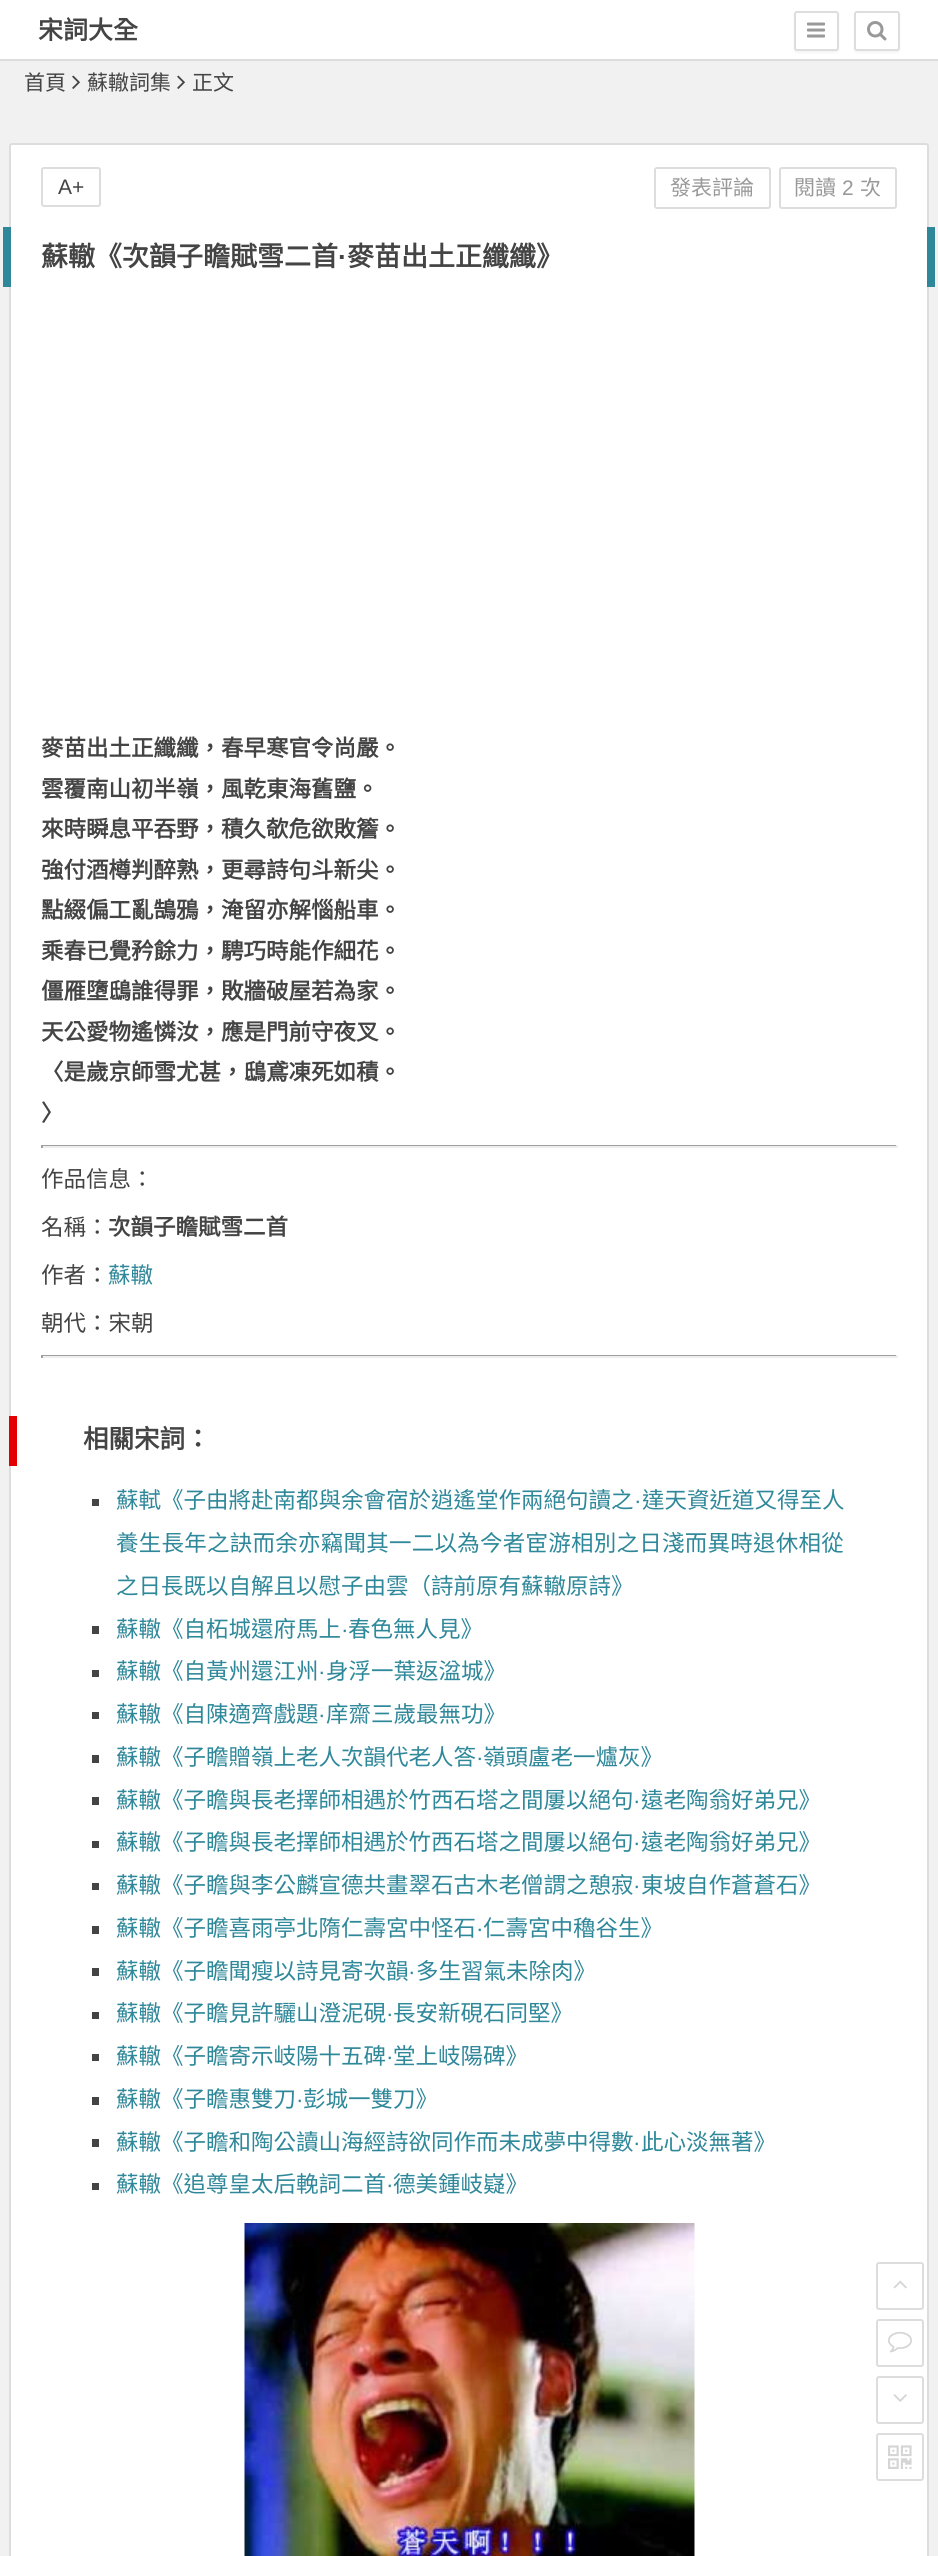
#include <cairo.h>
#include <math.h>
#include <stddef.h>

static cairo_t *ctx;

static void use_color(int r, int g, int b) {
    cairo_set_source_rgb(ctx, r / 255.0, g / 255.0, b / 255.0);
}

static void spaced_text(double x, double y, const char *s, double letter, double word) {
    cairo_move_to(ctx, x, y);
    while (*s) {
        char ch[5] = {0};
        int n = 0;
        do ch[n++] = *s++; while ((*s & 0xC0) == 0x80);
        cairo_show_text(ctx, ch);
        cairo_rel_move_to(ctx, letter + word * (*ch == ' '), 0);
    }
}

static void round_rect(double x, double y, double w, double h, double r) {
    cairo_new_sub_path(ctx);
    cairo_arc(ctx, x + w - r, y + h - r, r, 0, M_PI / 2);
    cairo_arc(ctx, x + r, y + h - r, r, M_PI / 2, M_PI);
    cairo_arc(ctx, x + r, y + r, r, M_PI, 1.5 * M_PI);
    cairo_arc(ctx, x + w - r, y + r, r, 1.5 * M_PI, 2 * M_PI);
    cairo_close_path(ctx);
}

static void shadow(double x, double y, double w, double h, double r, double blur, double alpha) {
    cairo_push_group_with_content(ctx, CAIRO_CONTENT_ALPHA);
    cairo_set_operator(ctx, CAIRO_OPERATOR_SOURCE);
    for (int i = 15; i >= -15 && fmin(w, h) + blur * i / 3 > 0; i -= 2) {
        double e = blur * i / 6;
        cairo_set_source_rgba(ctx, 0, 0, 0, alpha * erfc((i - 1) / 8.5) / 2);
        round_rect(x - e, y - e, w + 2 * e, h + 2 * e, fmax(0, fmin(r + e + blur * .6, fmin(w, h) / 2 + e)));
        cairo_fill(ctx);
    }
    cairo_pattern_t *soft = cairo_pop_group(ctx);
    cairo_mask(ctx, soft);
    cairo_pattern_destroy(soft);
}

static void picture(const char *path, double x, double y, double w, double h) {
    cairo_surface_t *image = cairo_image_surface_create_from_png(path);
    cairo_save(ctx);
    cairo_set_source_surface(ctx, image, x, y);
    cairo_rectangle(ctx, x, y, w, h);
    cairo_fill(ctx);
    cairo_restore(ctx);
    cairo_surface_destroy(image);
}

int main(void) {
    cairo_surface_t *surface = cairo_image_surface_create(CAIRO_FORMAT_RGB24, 938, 2556);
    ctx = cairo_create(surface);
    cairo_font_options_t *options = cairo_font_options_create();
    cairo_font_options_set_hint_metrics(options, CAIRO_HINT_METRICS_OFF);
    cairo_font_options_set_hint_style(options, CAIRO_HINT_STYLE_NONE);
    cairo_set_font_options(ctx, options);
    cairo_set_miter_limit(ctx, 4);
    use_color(241, 241, 241);
    cairo_paint(ctx);
    use_color(255, 255, 255);
    cairo_rectangle(ctx, 0, 0, 938, 59);
    cairo_fill(ctx);
    use_color(221, 221, 221);
    cairo_rectangle(ctx, 0, 59, 938, 2);
    cairo_fill(ctx);
    cairo_select_font_face(ctx, "Noto Sans CJK TC", CAIRO_FONT_SLANT_NORMAL, CAIRO_FONT_WEIGHT_BOLD);
    cairo_set_font_size(ctx, 25);
    use_color(68, 68, 68);
    cairo_move_to(ctx, 38, 39);
    cairo_show_text(ctx, "宋詞大全");
    use_color(0, 0, 0);
    shadow(794, 12, 45, 41, 3, 1, 0.04);
    use_color(255, 255, 255);
    round_rect(795, 12, 43, 38, 2);
    cairo_fill_preserve(ctx);
    use_color(221, 221, 221);
    cairo_stroke(ctx);
    picture("img1.png", 807, 22, 18, 16);
    use_color(0, 0, 0);
    shadow(854, 12, 46, 41, 3, 1, 0.04);
    use_color(255, 255, 255);
    round_rect(855, 12, 44, 38, 2);
    cairo_fill_preserve(ctx);
    use_color(221, 221, 221);
    cairo_stroke(ctx);
    picture("img2.png", 867, 21, 20, 20);
    cairo_select_font_face(ctx, "Noto Sans CJK TC", CAIRO_FONT_SLANT_NORMAL, CAIRO_FONT_WEIGHT_NORMAL);
    cairo_set_font_size(ctx, 21);
    use_color(68, 68, 68);
    cairo_move_to(ctx, 24, 90);
    cairo_show_text(ctx, "首頁");
    picture("img3.png", 72, 75, 8, 14);
    cairo_move_to(ctx, 87, 90);
    cairo_show_text(ctx, "蘇轍詞集");
    picture("img3.png", 177, 75, 8, 14);
    cairo_move_to(ctx, 192, 90);
    cairo_show_text(ctx, "正文");
    use_color(255, 255, 255);
    round_rect(10, 144, 918, 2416, 2);
    cairo_fill_preserve(ctx);
    use_color(221, 221, 221);
    cairo_stroke(ctx);
    round_rect(42, 168, 58, 38, 2);
    cairo_stroke(ctx);
    cairo_select_font_face(ctx, "Liberation Sans", CAIRO_FONT_SLANT_NORMAL, CAIRO_FONT_WEIGHT_NORMAL);
    use_color(68, 68, 68);
    cairo_move_to(ctx, 58, 194);
    cairo_show_text(ctx, "A+");
    round_rect(655, 168, 115, 40, 2);
    use_color(221, 221, 221);
    cairo_stroke(ctx);
    cairo_select_font_face(ctx, "Noto Sans CJK TC", CAIRO_FONT_SLANT_NORMAL, CAIRO_FONT_WEIGHT_NORMAL);
    use_color(153, 153, 153);
    cairo_move_to(ctx, 670, 195);
    cairo_show_text(ctx, "發表評論");
    round_rect(780, 168, 116, 40, 2);
    use_color(221, 221, 221);
    cairo_stroke(ctx);
    use_color(153, 153, 153);
    cairo_move_to(ctx, 794, 195);
    cairo_show_text(ctx, "閱讀");
    cairo_select_font_face(ctx, "Liberation Sans", CAIRO_FONT_SLANT_NORMAL, CAIRO_FONT_WEIGHT_NORMAL);
    cairo_move_to(ctx, 842, 195);
    cairo_show_text(ctx, "2");
    cairo_select_font_face(ctx, "Noto Sans CJK TC", CAIRO_FONT_SLANT_NORMAL, CAIRO_FONT_WEIGHT_NORMAL);
    cairo_move_to(ctx, 860, 195);
    cairo_show_text(ctx, "次");
    cairo_select_font_face(ctx, "Noto Sans CJK TC", CAIRO_FONT_SLANT_NORMAL, CAIRO_FONT_WEIGHT_BOLD);
    cairo_set_font_size(ctx, 22.5);
    use_color(68, 68, 68);
    cairo_move_to(ctx, 41, 756);
    cairo_show_text(ctx, "麥苗出土正纖纖，春早寒官令尚嚴。");
    cairo_move_to(ctx, 41, 797);
    cairo_show_text(ctx, "雲覆南山初半嶺，風乾東海舊鹽。");
    cairo_move_to(ctx, 41, 837);
    cairo_show_text(ctx, "來時瞬息平吞野，積久欹危欲敗簷。");
    cairo_move_to(ctx, 41, 878);
    cairo_show_text(ctx, "強付酒樽判醉熟，更尋詩句斗新尖。");
    cairo_move_to(ctx, 41, 918);
    cairo_show_text(ctx, "點綴偏工亂鵠鴉，淹留亦解惱船車。");
    cairo_move_to(ctx, 41, 959);
    cairo_show_text(ctx, "乘春已覺矜餘力，騁巧時能作細花。");
    cairo_move_to(ctx, 41, 999);
    cairo_show_text(ctx, "僵雁墮鴟誰得罪，敗牆破屋若為家。");
    cairo_move_to(ctx, 41, 1040);
    cairo_show_text(ctx, "天公愛物遙憐汝，應是門前守夜叉。");
    cairo_move_to(ctx, 41, 1080);
    cairo_show_text(ctx, "〈是歲京師雪尤甚，鴟鳶凍死如積。");
    cairo_move_to(ctx, 41, 1121);
    cairo_show_text(ctx, "〉");
    use_color(159, 159, 159);
    cairo_rectangle(ctx, 41, 1145, 856, 1);
    cairo_fill(ctx);
    use_color(238, 238, 238);
    cairo_rectangle(ctx, 896, 1145, 2, 3);
    cairo_fill(ctx);
    cairo_rectangle(ctx, 41, 1146, 856, 2);
    cairo_fill(ctx);
    use_color(159, 159, 159);
    cairo_rectangle(ctx, 41, 1145, 2, 3);
    cairo_fill(ctx);
    cairo_select_font_face(ctx, "Noto Sans CJK TC", CAIRO_FONT_SLANT_NORMAL, CAIRO_FONT_WEIGHT_NORMAL);
    use_color(68, 68, 68);
    cairo_move_to(ctx, 41, 1187);
    cairo_show_text(ctx, "作品信息：");
    cairo_move_to(ctx, 41, 1235);
    cairo_show_text(ctx, "名稱：");
    cairo_select_font_face(ctx, "Noto Sans CJK TC", CAIRO_FONT_SLANT_NORMAL, CAIRO_FONT_WEIGHT_BOLD);
    cairo_move_to(ctx, 108, 1235);
    cairo_show_text(ctx, "次韻子瞻賦雪二首");
    cairo_select_font_face(ctx, "Noto Sans CJK TC", CAIRO_FONT_SLANT_NORMAL, CAIRO_FONT_WEIGHT_NORMAL);
    cairo_move_to(ctx, 41, 1283);
    cairo_show_text(ctx, "作者：");
    use_color(47, 136, 154);
    cairo_move_to(ctx, 108, 1283);
    cairo_show_text(ctx, "蘇轍");
    use_color(68, 68, 68);
    cairo_move_to(ctx, 41, 1331);
    cairo_show_text(ctx, "朝代：宋朝");
    use_color(159, 159, 159);
    cairo_rectangle(ctx, 41, 1355, 856, 1);
    cairo_fill(ctx);
    use_color(238, 238, 238);
    cairo_rectangle(ctx, 896, 1355, 2, 3);
    cairo_fill(ctx);
    cairo_rectangle(ctx, 41, 1356, 856, 2);
    cairo_fill(ctx);
    use_color(159, 159, 159);
    cairo_rectangle(ctx, 41, 1355, 2, 3);
    cairo_fill(ctx);
    use_color(228, 0, 0);
    cairo_rectangle(ctx, 9, 1416, 8, 50);
    cairo_fill(ctx);
    cairo_select_font_face(ctx, "Noto Sans CJK TC", CAIRO_FONT_SLANT_NORMAL, CAIRO_FONT_WEIGHT_BOLD);
    cairo_set_font_size(ctx, 25.5);
    use_color(68, 68, 68);
    cairo_move_to(ctx, 83, 1448);
    cairo_show_text(ctx, "相關宋詞：");
    cairo_rectangle(ctx, 92, 1499, 7, 7);
    cairo_fill(ctx);
    cairo_select_font_face(ctx, "Noto Sans CJK TC", CAIRO_FONT_SLANT_NORMAL, CAIRO_FONT_WEIGHT_NORMAL);
    cairo_set_font_size(ctx, 22.5);
    use_color(47, 136, 154);
    cairo_move_to(ctx, 116, 1508);
    cairo_show_text(ctx, "蘇軾《子由將赴南都與余會宿於逍遙堂作兩絕句讀之");
    cairo_select_font_face(ctx, "Liberation Sans", CAIRO_FONT_SLANT_NORMAL, CAIRO_FONT_WEIGHT_NORMAL);
    cairo_move_to(ctx, 634, 1508);
    cairo_show_text(ctx, "·");
    cairo_select_font_face(ctx, "Noto Sans CJK TC", CAIRO_FONT_SLANT_NORMAL, CAIRO_FONT_WEIGHT_NORMAL);
    cairo_move_to(ctx, 642, 1508);
    cairo_show_text(ctx, "達天資近道又得至人");
    spaced_text(116, 1551, "養生長年之訣而余亦竊聞其一二以為今者宦游相別之日淺而異時退休相從", 0.25, 0);
    cairo_move_to(ctx, 116, 1594);
    cairo_show_text(ctx, "之日長既以自解且以慰子由雲（詩前原有蘇轍原詩》");
    use_color(68, 68, 68);
    cairo_rectangle(ctx, 92, 1626, 7, 8);
    cairo_fill(ctx);
    use_color(47, 136, 154);
    cairo_move_to(ctx, 116, 1637);
    cairo_show_text(ctx, "蘇轍《自柘城還府馬上");
    cairo_select_font_face(ctx, "Liberation Sans", CAIRO_FONT_SLANT_NORMAL, CAIRO_FONT_WEIGHT_NORMAL);
    cairo_move_to(ctx, 341, 1637);
    cairo_show_text(ctx, "·");
    cairo_select_font_face(ctx, "Noto Sans CJK TC", CAIRO_FONT_SLANT_NORMAL, CAIRO_FONT_WEIGHT_NORMAL);
    cairo_move_to(ctx, 348, 1637);
    cairo_show_text(ctx, "春色無人見》");
    use_color(68, 68, 68);
    cairo_rectangle(ctx, 92, 1670, 7, 7);
    cairo_fill(ctx);
    use_color(47, 136, 154);
    cairo_move_to(ctx, 116, 1679);
    cairo_show_text(ctx, "蘇轍《自黃州還江州");
    cairo_select_font_face(ctx, "Liberation Sans", CAIRO_FONT_SLANT_NORMAL, CAIRO_FONT_WEIGHT_NORMAL);
    cairo_move_to(ctx, 318, 1679);
    cairo_show_text(ctx, "·");
    cairo_select_font_face(ctx, "Noto Sans CJK TC", CAIRO_FONT_SLANT_NORMAL, CAIRO_FONT_WEIGHT_NORMAL);
    cairo_move_to(ctx, 326, 1679);
    cairo_show_text(ctx, "身浮一葉返湓城》");
    use_color(68, 68, 68);
    cairo_rectangle(ctx, 92, 1712, 7, 7);
    cairo_fill(ctx);
    use_color(47, 136, 154);
    cairo_move_to(ctx, 116, 1722);
    cairo_show_text(ctx, "蘇轍《自陳適齊戲題");
    cairo_select_font_face(ctx, "Liberation Sans", CAIRO_FONT_SLANT_NORMAL, CAIRO_FONT_WEIGHT_NORMAL);
    cairo_move_to(ctx, 318, 1722);
    cairo_show_text(ctx, "·");
    cairo_select_font_face(ctx, "Noto Sans CJK TC", CAIRO_FONT_SLANT_NORMAL, CAIRO_FONT_WEIGHT_NORMAL);
    cairo_move_to(ctx, 326, 1722);
    cairo_show_text(ctx, "庠齋三歲最無功》");
    use_color(68, 68, 68);
    cairo_rectangle(ctx, 92, 1755, 7, 8);
    cairo_fill(ctx);
    use_color(47, 136, 154);
    cairo_move_to(ctx, 116, 1765);
    cairo_show_text(ctx, "蘇轍《子瞻贈嶺上老人次韻代老人答");
    cairo_select_font_face(ctx, "Liberation Sans", CAIRO_FONT_SLANT_NORMAL, CAIRO_FONT_WEIGHT_NORMAL);
    cairo_move_to(ctx, 476, 1765);
    cairo_show_text(ctx, "·");
    cairo_select_font_face(ctx, "Noto Sans CJK TC", CAIRO_FONT_SLANT_NORMAL, CAIRO_FONT_WEIGHT_NORMAL);
    cairo_move_to(ctx, 483, 1765);
    cairo_show_text(ctx, "嶺頭盧老一爐灰》");
    use_color(68, 68, 68);
    cairo_rectangle(ctx, 92, 1797, 7, 8);
    cairo_fill(ctx);
    use_color(47, 136, 154);
    cairo_move_to(ctx, 116, 1808);
    cairo_show_text(ctx, "蘇轍《子瞻與長老擇師相遇於竹西石塔之間屢以絕句");
    cairo_select_font_face(ctx, "Liberation Sans", CAIRO_FONT_SLANT_NORMAL, CAIRO_FONT_WEIGHT_NORMAL);
    cairo_move_to(ctx, 633, 1808);
    cairo_show_text(ctx, "·");
    cairo_select_font_face(ctx, "Noto Sans CJK TC", CAIRO_FONT_SLANT_NORMAL, CAIRO_FONT_WEIGHT_NORMAL);
    cairo_move_to(ctx, 641, 1808);
    cairo_show_text(ctx, "遠老陶翁好弟兄》");
    use_color(68, 68, 68);
    cairo_rectangle(ctx, 92, 1841, 7, 7);
    cairo_fill(ctx);
    use_color(47, 136, 154);
    cairo_move_to(ctx, 116, 1850);
    cairo_show_text(ctx, "蘇轍《子瞻與長老擇師相遇於竹西石塔之間屢以絕句");
    cairo_select_font_face(ctx, "Liberation Sans", CAIRO_FONT_SLANT_NORMAL, CAIRO_FONT_WEIGHT_NORMAL);
    cairo_move_to(ctx, 633, 1850);
    cairo_show_text(ctx, "·");
    cairo_select_font_face(ctx, "Noto Sans CJK TC", CAIRO_FONT_SLANT_NORMAL, CAIRO_FONT_WEIGHT_NORMAL);
    cairo_move_to(ctx, 641, 1850);
    cairo_show_text(ctx, "遠老陶翁好弟兄》");
    use_color(68, 68, 68);
    cairo_rectangle(ctx, 92, 1883, 7, 7);
    cairo_fill(ctx);
    use_color(47, 136, 154);
    cairo_move_to(ctx, 116, 1893);
    cairo_show_text(ctx, "蘇轍《子瞻與李公麟宣德共畫翠石古木老僧謂之憩寂");
    cairo_select_font_face(ctx, "Liberation Sans", CAIRO_FONT_SLANT_NORMAL, CAIRO_FONT_WEIGHT_NORMAL);
    cairo_move_to(ctx, 633, 1893);
    cairo_show_text(ctx, "·");
    cairo_select_font_face(ctx, "Noto Sans CJK TC", CAIRO_FONT_SLANT_NORMAL, CAIRO_FONT_WEIGHT_NORMAL);
    cairo_move_to(ctx, 641, 1893);
    cairo_show_text(ctx, "東坡自作蒼蒼石》");
    use_color(68, 68, 68);
    cairo_rectangle(ctx, 92, 1926, 7, 8);
    cairo_fill(ctx);
    use_color(47, 136, 154);
    cairo_move_to(ctx, 116, 1936);
    cairo_show_text(ctx, "蘇轍《子瞻喜雨亭北隋仁壽宮中怪石");
    cairo_select_font_face(ctx, "Liberation Sans", CAIRO_FONT_SLANT_NORMAL, CAIRO_FONT_WEIGHT_NORMAL);
    cairo_move_to(ctx, 476, 1936);
    cairo_show_text(ctx, "·");
    cairo_select_font_face(ctx, "Noto Sans CJK TC", CAIRO_FONT_SLANT_NORMAL, CAIRO_FONT_WEIGHT_NORMAL);
    cairo_move_to(ctx, 483, 1936);
    cairo_show_text(ctx, "仁壽宮中穭谷生》");
    use_color(68, 68, 68);
    cairo_rectangle(ctx, 92, 1968, 7, 8);
    cairo_fill(ctx);
    use_color(47, 136, 154);
    cairo_move_to(ctx, 116, 1979);
    cairo_show_text(ctx, "蘇轍《子瞻聞瘦以詩見寄次韻");
    cairo_select_font_face(ctx, "Liberation Sans", CAIRO_FONT_SLANT_NORMAL, CAIRO_FONT_WEIGHT_NORMAL);
    cairo_move_to(ctx, 408, 1979);
    cairo_show_text(ctx, "·");
    cairo_select_font_face(ctx, "Noto Sans CJK TC", CAIRO_FONT_SLANT_NORMAL, CAIRO_FONT_WEIGHT_NORMAL);
    cairo_move_to(ctx, 416, 1979);
    cairo_show_text(ctx, "多生習氣未除肉》");
    use_color(68, 68, 68);
    cairo_rectangle(ctx, 92, 2012, 7, 7);
    cairo_fill(ctx);
    use_color(47, 136, 154);
    cairo_move_to(ctx, 116, 2021);
    cairo_show_text(ctx, "蘇轍《子瞻見許驪山澄泥硯");
    cairo_select_font_face(ctx, "Liberation Sans", CAIRO_FONT_SLANT_NORMAL, CAIRO_FONT_WEIGHT_NORMAL);
    cairo_move_to(ctx, 386, 2021);
    cairo_show_text(ctx, "·");
    cairo_select_font_face(ctx, "Noto Sans CJK TC", CAIRO_FONT_SLANT_NORMAL, CAIRO_FONT_WEIGHT_NORMAL);
    cairo_move_to(ctx, 393, 2021);
    cairo_show_text(ctx, "長安新硯石同堅》");
    use_color(68, 68, 68);
    cairo_rectangle(ctx, 92, 2054, 7, 7);
    cairo_fill(ctx);
    use_color(47, 136, 154);
    cairo_move_to(ctx, 116, 2064);
    cairo_show_text(ctx, "蘇轍《子瞻寄示岐陽十五碑");
    cairo_select_font_face(ctx, "Liberation Sans", CAIRO_FONT_SLANT_NORMAL, CAIRO_FONT_WEIGHT_NORMAL);
    cairo_move_to(ctx, 386, 2064);
    cairo_show_text(ctx, "·");
    cairo_select_font_face(ctx, "Noto Sans CJK TC", CAIRO_FONT_SLANT_NORMAL, CAIRO_FONT_WEIGHT_NORMAL);
    cairo_move_to(ctx, 393, 2064);
    cairo_show_text(ctx, "堂上岐陽碑》");
    use_color(68, 68, 68);
    cairo_rectangle(ctx, 92, 2097, 7, 8);
    cairo_fill(ctx);
    use_color(47, 136, 154);
    cairo_move_to(ctx, 116, 2107);
    cairo_show_text(ctx, "蘇轍《子瞻惠雙刀");
    cairo_select_font_face(ctx, "Liberation Sans", CAIRO_FONT_SLANT_NORMAL, CAIRO_FONT_WEIGHT_NORMAL);
    cairo_move_to(ctx, 296, 2107);
    cairo_show_text(ctx, "·");
    cairo_select_font_face(ctx, "Noto Sans CJK TC", CAIRO_FONT_SLANT_NORMAL, CAIRO_FONT_WEIGHT_NORMAL);
    cairo_move_to(ctx, 303, 2107);
    cairo_show_text(ctx, "彭城一雙刀》");
    use_color(68, 68, 68);
    cairo_rectangle(ctx, 92, 2139, 7, 8);
    cairo_fill(ctx);
    use_color(47, 136, 154);
    cairo_move_to(ctx, 116, 2150);
    cairo_show_text(ctx, "蘇轍《子瞻和陶公讀山海經詩欲同作而未成夢中得數");
    cairo_select_font_face(ctx, "Liberation Sans", CAIRO_FONT_SLANT_NORMAL, CAIRO_FONT_WEIGHT_NORMAL);
    cairo_move_to(ctx, 633, 2150);
    cairo_show_text(ctx, "·");
    cairo_select_font_face(ctx, "Noto Sans CJK TC", CAIRO_FONT_SLANT_NORMAL, CAIRO_FONT_WEIGHT_NORMAL);
    cairo_move_to(ctx, 641, 2150);
    cairo_show_text(ctx, "此心淡無著》");
    use_color(68, 68, 68);
    cairo_rectangle(ctx, 92, 2183, 7, 7);
    cairo_fill(ctx);
    use_color(47, 136, 154);
    cairo_move_to(ctx, 116, 2192);
    cairo_show_text(ctx, "蘇轍《追尊皇太后輓詞二首");
    cairo_select_font_face(ctx, "Liberation Sans", CAIRO_FONT_SLANT_NORMAL, CAIRO_FONT_WEIGHT_NORMAL);
    cairo_move_to(ctx, 386, 2192);
    cairo_show_text(ctx, "·");
    cairo_select_font_face(ctx, "Noto Sans CJK TC", CAIRO_FONT_SLANT_NORMAL, CAIRO_FONT_WEIGHT_NORMAL);
    cairo_move_to(ctx, 393, 2192);
    cairo_show_text(ctx, "德美鍾岐嶷》");
    picture("img4.png", 244, 2223, 451, 333);
    cairo_rectangle(ctx, 927, 227, 8, 60);
    cairo_fill(ctx);
    cairo_rectangle(ctx, 3, 227, 8, 60);
    cairo_fill(ctx);
    cairo_select_font_face(ctx, "Noto Sans CJK TC", CAIRO_FONT_SLANT_NORMAL, CAIRO_FONT_WEIGHT_BOLD);
    cairo_set_font_size(ctx, 27);
    use_color(68, 68, 68);
    cairo_move_to(ctx, 41, 266);
    cairo_show_text(ctx, "蘇轍《次韻子瞻賦雪二首");
    cairo_select_font_face(ctx, "Liberation Sans", CAIRO_FONT_SLANT_NORMAL, CAIRO_FONT_WEIGHT_BOLD);
    cairo_move_to(ctx, 338, 266);
    cairo_show_text(ctx, "·");
    cairo_select_font_face(ctx, "Noto Sans CJK TC", CAIRO_FONT_SLANT_NORMAL, CAIRO_FONT_WEIGHT_BOLD);
    cairo_move_to(ctx, 347, 266);
    cairo_show_text(ctx, "麥苗出土正纖纖》");
    round_rect(877, 2263, 46, 46, 2);
    use_color(221, 221, 221);
    cairo_stroke(ctx);
    picture("img5.png", 893, 2280, 14, 9);
    round_rect(877, 2320, 46, 46, 2);
    cairo_stroke(ctx);
    picture("img6.png", 888, 2331, 24, 22);
    round_rect(877, 2377, 46, 46, 2);
    cairo_stroke(ctx);
    picture("img7.png", 893, 2394, 14, 8);
    round_rect(877, 2434, 46, 46, 2);
    cairo_stroke(ctx);
    picture("img8.png", 888, 2445, 24, 24);
    cairo_surface_write_to_png(surface, "result.png");
    cairo_font_options_destroy(options);
    cairo_destroy(ctx);
    cairo_surface_destroy(surface);
    return 0;
}
